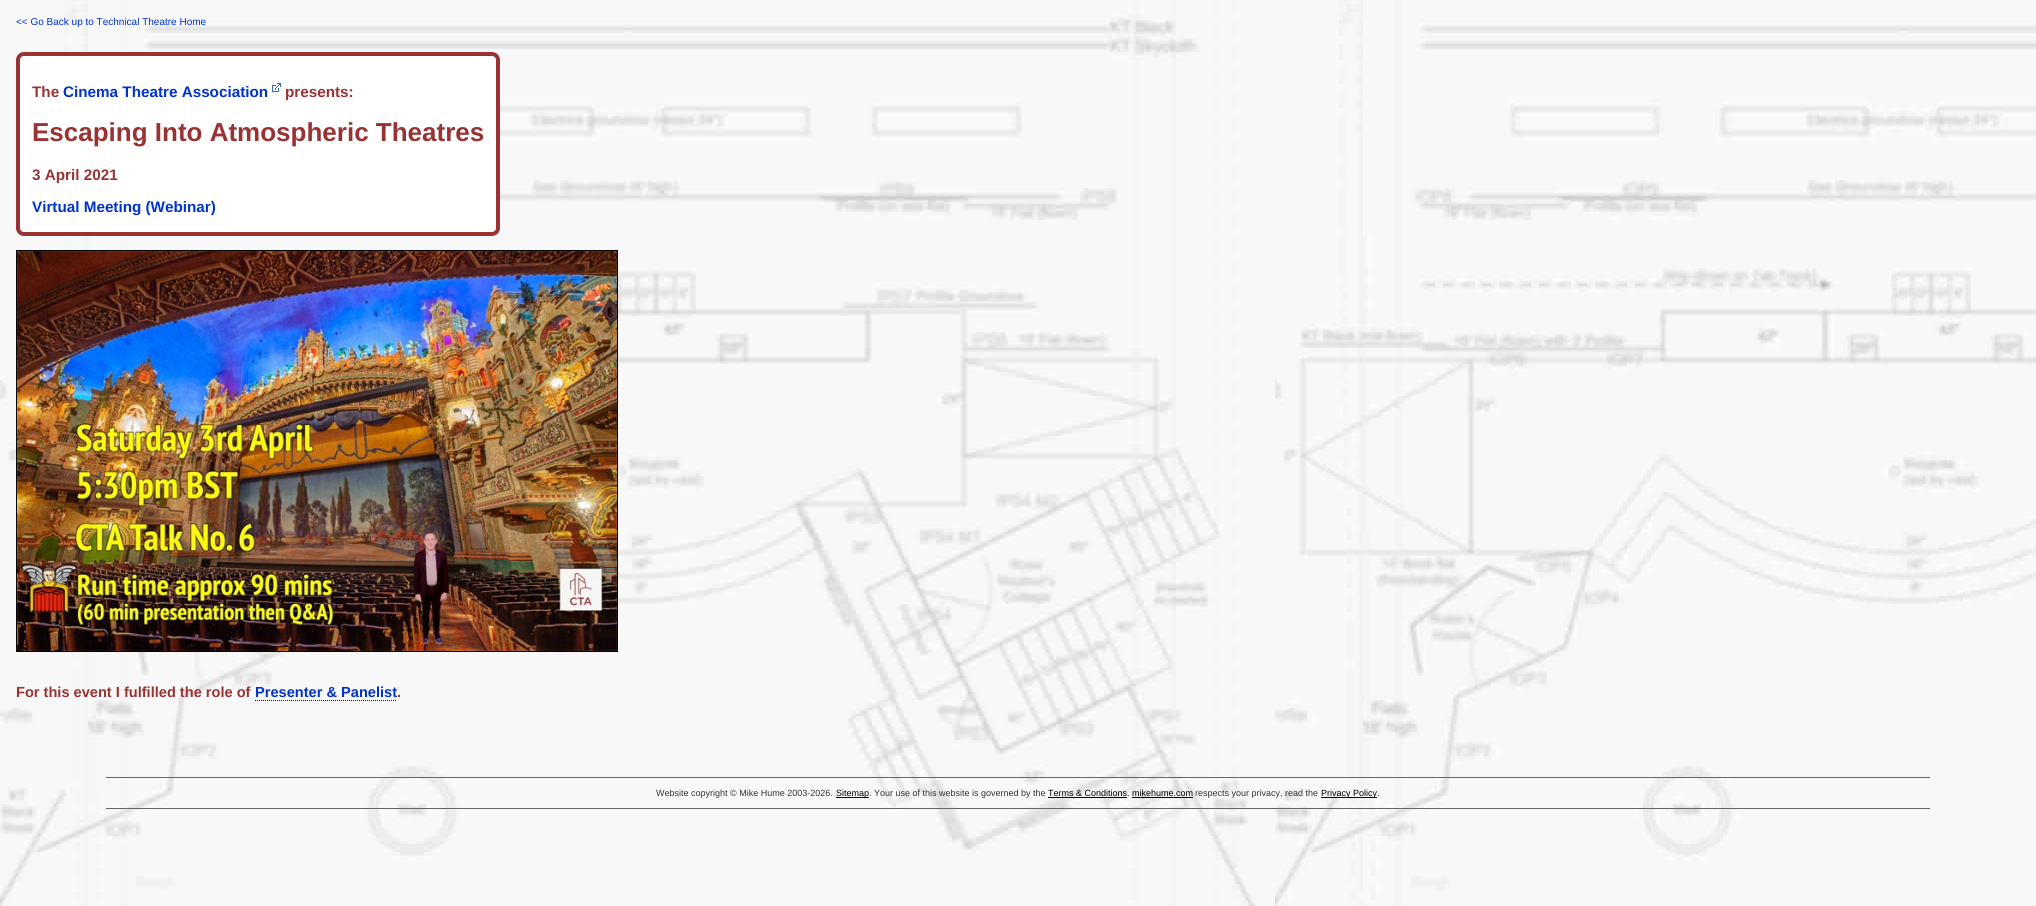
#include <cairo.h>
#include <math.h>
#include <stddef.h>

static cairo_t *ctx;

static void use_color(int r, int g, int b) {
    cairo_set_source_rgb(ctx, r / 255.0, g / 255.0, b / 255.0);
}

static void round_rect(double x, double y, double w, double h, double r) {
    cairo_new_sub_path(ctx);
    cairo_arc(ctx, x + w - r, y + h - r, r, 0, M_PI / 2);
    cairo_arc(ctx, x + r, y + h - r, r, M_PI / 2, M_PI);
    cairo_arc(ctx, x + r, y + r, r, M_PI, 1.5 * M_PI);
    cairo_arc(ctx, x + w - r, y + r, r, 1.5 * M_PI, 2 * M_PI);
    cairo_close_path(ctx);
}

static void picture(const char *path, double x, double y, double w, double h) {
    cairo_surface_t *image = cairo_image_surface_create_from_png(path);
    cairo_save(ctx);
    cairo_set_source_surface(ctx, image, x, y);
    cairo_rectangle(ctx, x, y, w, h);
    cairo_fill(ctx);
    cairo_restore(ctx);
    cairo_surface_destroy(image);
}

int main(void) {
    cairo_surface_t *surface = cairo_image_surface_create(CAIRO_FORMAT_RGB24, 2036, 906);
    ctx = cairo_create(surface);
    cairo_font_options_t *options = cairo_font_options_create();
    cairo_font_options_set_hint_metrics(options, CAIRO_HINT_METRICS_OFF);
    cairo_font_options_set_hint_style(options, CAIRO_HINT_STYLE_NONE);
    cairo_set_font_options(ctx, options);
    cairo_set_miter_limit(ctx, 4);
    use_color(255, 255, 255);
    cairo_paint(ctx);
    picture("img1.png", 0, 0, 2036, 906);
    cairo_select_font_face(ctx, "Liberation Sans", CAIRO_FONT_SLANT_NORMAL, CAIRO_FONT_WEIGHT_NORMAL);
    cairo_set_font_size(ctx, 10);
    use_color(0, 51, 204);
    cairo_move_to(ctx, 16, 25);
    cairo_show_text(ctx, "<< Go Back up to Technical Theatre Home");
    use_color(255, 255, 255);
    round_rect(18, 54, 480, 180, 6);
    cairo_fill_preserve(ctx);
    use_color(153, 51, 51);
    cairo_set_line_width(ctx, 4);
    cairo_stroke(ctx);
    cairo_select_font_face(ctx, "Liberation Sans", CAIRO_FONT_SLANT_NORMAL, CAIRO_FONT_WEIGHT_BOLD);
    cairo_set_font_size(ctx, 15.25);
    cairo_move_to(ctx, 32, 97);
    cairo_show_text(ctx, "The");
    use_color(0, 51, 204);
    cairo_move_to(ctx, 63, 97);
    cairo_show_text(ctx, "Cinema Theatre Association");
    picture("img2.png", 272, 83, 9, 9);
    use_color(153, 51, 51);
    cairo_move_to(ctx, 285, 97);
    cairo_show_text(ctx, "presents:");
    cairo_set_font_size(ctx, 26);
    cairo_move_to(ctx, 32, 141);
    cairo_show_text(ctx, "Escaping Into Atmospheric Theatres");
    cairo_set_font_size(ctx, 15.25);
    cairo_move_to(ctx, 32, 180);
    cairo_show_text(ctx, "3 April 2021");
    use_color(0, 51, 204);
    cairo_move_to(ctx, 32, 212);
    cairo_show_text(ctx, "Virtual Meeting (Webinar)");
    cairo_rectangle(ctx, 16.5, 250.5, 601, 401);
    use_color(0, 0, 0);
    cairo_set_line_width(ctx, 1);
    cairo_stroke(ctx);
    picture("img3.png", 17, 251, 600, 400);
    cairo_set_font_size(ctx, 14.6);
    use_color(153, 51, 51);
    cairo_move_to(ctx, 16, 697);
    cairo_show_text(ctx, "For this event I fulfilled the role of");
    cairo_new_path(ctx);
    cairo_move_to(ctx, 255, 700.5);
    cairo_line_to(ctx, 397, 700.5);
    use_color(0, 0, 255);
    cairo_set_dash(ctx, (double[]){1, 1}, 2, 0);
    cairo_stroke(ctx);
    use_color(0, 51, 204);
    cairo_move_to(ctx, 255, 697);
    cairo_show_text(ctx, "Presenter & Panelist");
    use_color(153, 51, 51);
    cairo_move_to(ctx, 397, 697);
    cairo_show_text(ctx, ".");
    use_color(102, 102, 102);
    cairo_rectangle(ctx, 106, 777, 1824, 1);
    cairo_fill(ctx);
    cairo_rectangle(ctx, 106, 808, 1824, 1);
    cairo_fill(ctx);
    cairo_select_font_face(ctx, "Liberation Sans", CAIRO_FONT_SLANT_NORMAL, CAIRO_FONT_WEIGHT_NORMAL);
    cairo_set_font_size(ctx, 9);
    use_color(51, 51, 51);
    cairo_move_to(ctx, 656, 796);
    cairo_show_text(ctx, "Website copyright © Mike Hume 2003-2026.");
    use_color(0, 0, 0);
    cairo_rectangle(ctx, 836, 797, 33, 1);
    cairo_fill(ctx);
    cairo_move_to(ctx, 836, 796);
    cairo_show_text(ctx, "Sitemap");
    use_color(51, 51, 51);
    cairo_move_to(ctx, 869, 796);
    cairo_show_text(ctx, ". Your use of this website is governed by the");
    use_color(0, 0, 0);
    cairo_move_to(ctx, 1048, 796);
    cairo_show_text(ctx, "Terms & Conditions");
    cairo_rectangle(ctx, 1048, 797, 79, 1);
    cairo_fill(ctx);
    use_color(51, 51, 51);
    cairo_move_to(ctx, 1127, 796);
    cairo_show_text(ctx, ".");
    use_color(0, 0, 0);
    cairo_move_to(ctx, 1132, 796);
    cairo_show_text(ctx, "mikehume.com");
    cairo_rectangle(ctx, 1132, 797, 61, 1);
    cairo_fill(ctx);
    use_color(51, 51, 51);
    cairo_move_to(ctx, 1195, 796);
    cairo_show_text(ctx, "respects your privacy, read the");
    use_color(0, 0, 0);
    cairo_rectangle(ctx, 1321, 797, 56, 1);
    cairo_fill(ctx);
    cairo_move_to(ctx, 1321, 796);
    cairo_show_text(ctx, "Privacy Policy");
    use_color(51, 51, 51);
    cairo_move_to(ctx, 1377, 796);
    cairo_show_text(ctx, ".");
    cairo_surface_write_to_png(surface, "result.png");
    cairo_font_options_destroy(options);
    cairo_destroy(ctx);
    cairo_surface_destroy(surface);
    return 0;
}
